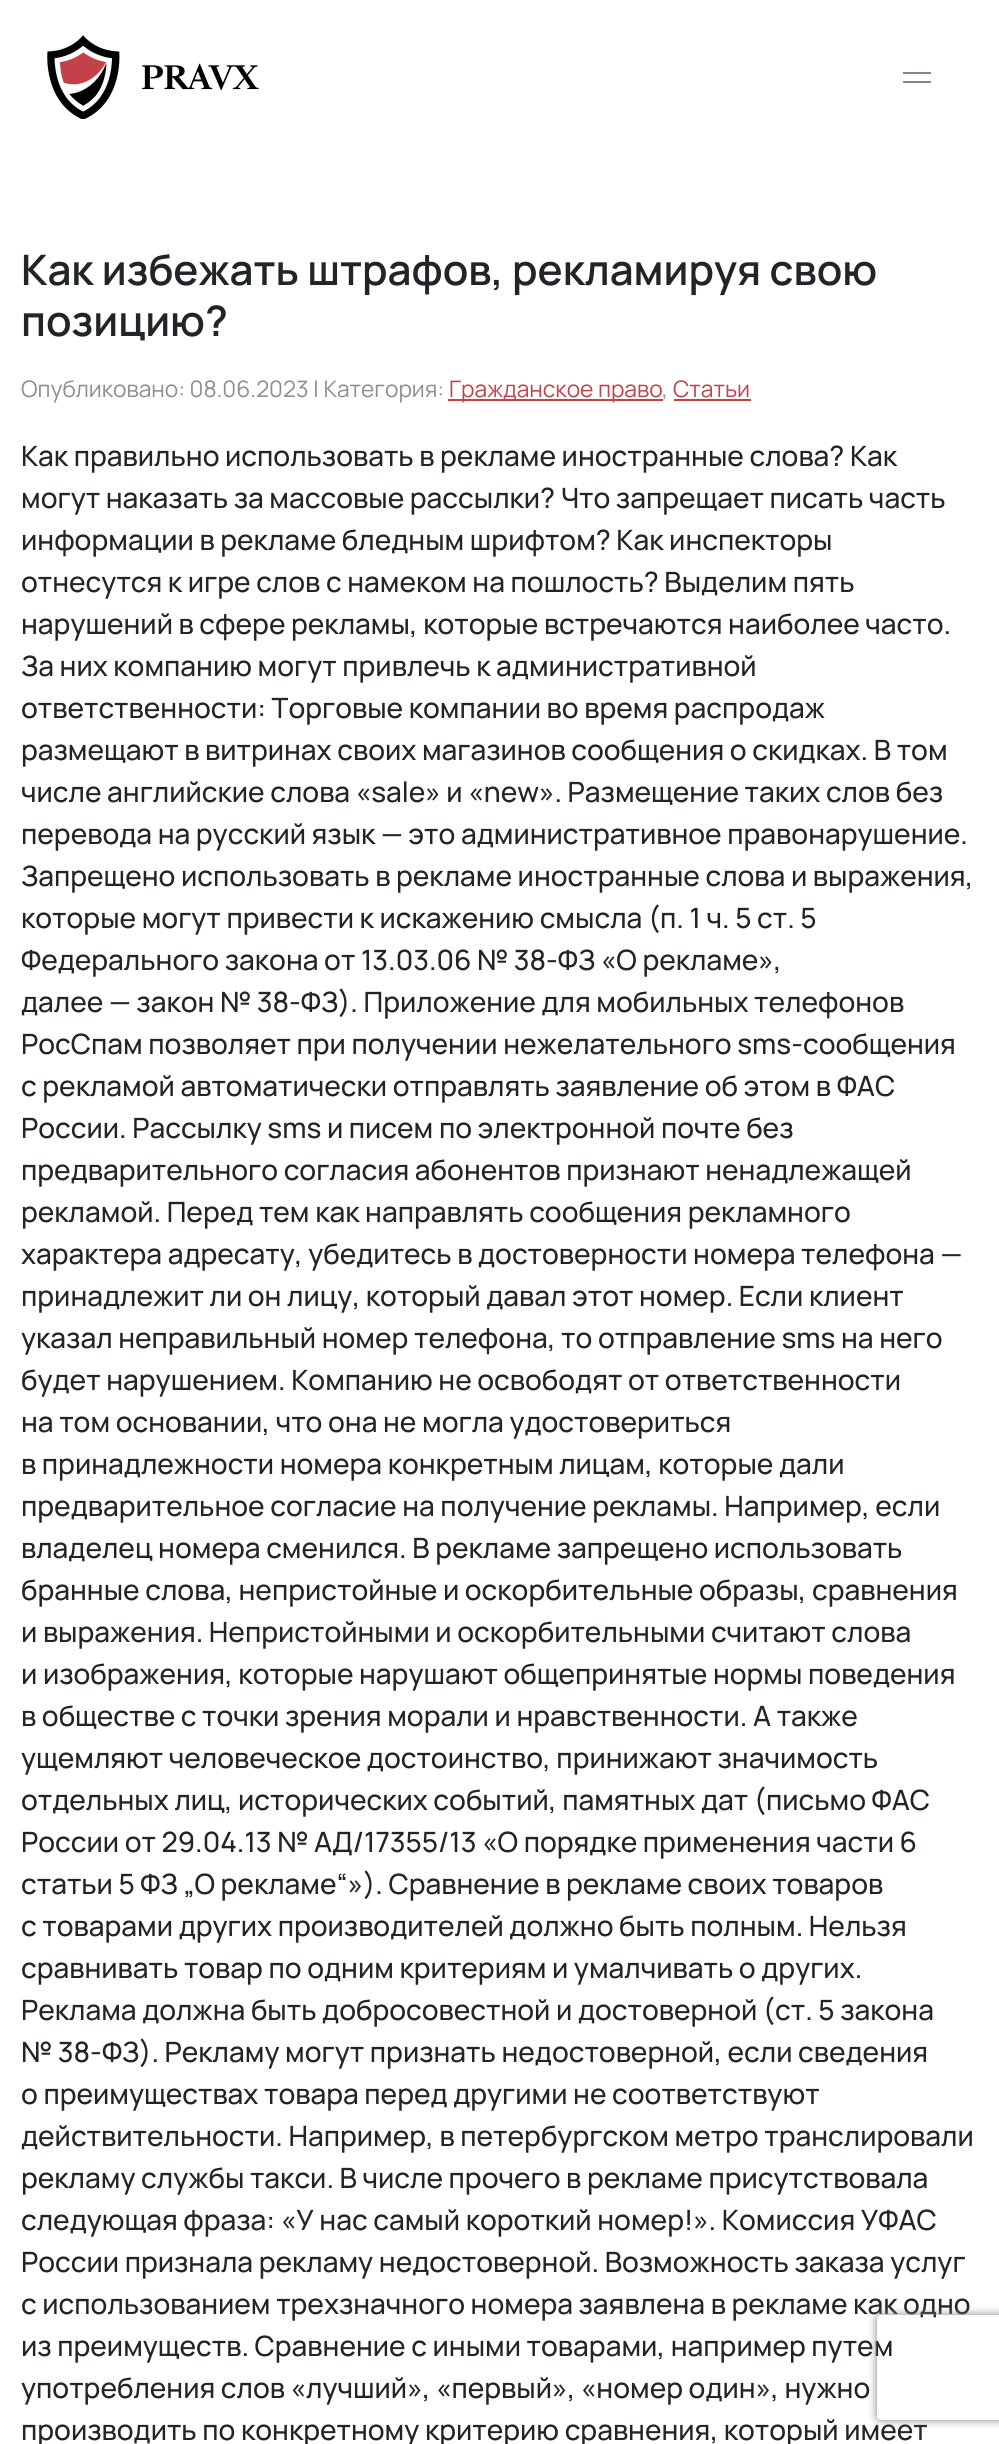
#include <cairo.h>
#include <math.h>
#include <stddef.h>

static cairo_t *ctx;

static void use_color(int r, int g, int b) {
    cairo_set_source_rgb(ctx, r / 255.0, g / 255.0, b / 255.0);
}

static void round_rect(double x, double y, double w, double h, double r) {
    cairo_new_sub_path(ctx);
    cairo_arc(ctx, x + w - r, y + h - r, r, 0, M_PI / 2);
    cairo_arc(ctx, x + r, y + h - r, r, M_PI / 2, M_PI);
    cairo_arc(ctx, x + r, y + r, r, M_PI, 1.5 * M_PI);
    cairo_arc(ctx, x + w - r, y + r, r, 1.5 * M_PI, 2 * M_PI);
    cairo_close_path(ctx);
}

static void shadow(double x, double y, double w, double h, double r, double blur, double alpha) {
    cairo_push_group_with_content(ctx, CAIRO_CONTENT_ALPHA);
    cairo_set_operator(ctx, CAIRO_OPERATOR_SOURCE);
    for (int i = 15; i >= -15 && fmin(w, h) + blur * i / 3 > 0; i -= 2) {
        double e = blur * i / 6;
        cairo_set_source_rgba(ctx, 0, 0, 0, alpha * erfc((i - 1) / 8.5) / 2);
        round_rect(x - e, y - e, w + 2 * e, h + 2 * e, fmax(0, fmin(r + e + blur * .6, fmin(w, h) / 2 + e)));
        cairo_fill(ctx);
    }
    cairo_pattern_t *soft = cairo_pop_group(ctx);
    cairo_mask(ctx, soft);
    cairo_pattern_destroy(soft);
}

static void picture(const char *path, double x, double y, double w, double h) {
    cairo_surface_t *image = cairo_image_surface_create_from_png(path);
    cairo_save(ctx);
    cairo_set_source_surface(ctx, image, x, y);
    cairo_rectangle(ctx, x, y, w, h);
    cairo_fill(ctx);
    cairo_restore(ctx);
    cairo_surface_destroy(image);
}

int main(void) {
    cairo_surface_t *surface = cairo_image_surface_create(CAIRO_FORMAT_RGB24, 999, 2444);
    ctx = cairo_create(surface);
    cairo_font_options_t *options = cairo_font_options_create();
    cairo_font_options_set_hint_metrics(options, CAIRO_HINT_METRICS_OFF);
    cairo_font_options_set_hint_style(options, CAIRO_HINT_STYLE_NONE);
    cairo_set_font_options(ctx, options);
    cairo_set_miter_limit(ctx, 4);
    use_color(255, 255, 255);
    cairo_paint(ctx);
    picture("img1.png", 47, 35, 212, 84);
    use_color(133, 132, 138);
    cairo_rectangle(ctx, 903, 72, 28, 2);
    cairo_fill(ctx);
    cairo_rectangle(ctx, 903, 81, 28, 2);
    cairo_fill(ctx);
    cairo_select_font_face(ctx, "Manrope SemiBold", CAIRO_FONT_SLANT_NORMAL, CAIRO_FONT_WEIGHT_NORMAL);
    cairo_set_font_size(ctx, 42);
    use_color(33, 37, 41);
    cairo_move_to(ctx, 21, 285);
    cairo_show_text(ctx, "Как избежать штрафов, рекламируя свою");
    cairo_move_to(ctx, 21, 336);
    cairo_show_text(ctx, "позицию?");
    cairo_select_font_face(ctx, "Manrope", CAIRO_FONT_SLANT_NORMAL, CAIRO_FONT_WEIGHT_NORMAL);
    cairo_set_font_size(ctx, 22.75);
    use_color(142, 142, 142);
    cairo_move_to(ctx, 21, 397);
    cairo_show_text(ctx, "Опубликовано: 08.06.2023 | Категория:");
    use_color(195, 66, 73);
    cairo_rectangle(ctx, 448, 399, 215, 2);
    cairo_fill(ctx);
    cairo_move_to(ctx, 449, 397);
    cairo_show_text(ctx, "Гражданское право");
    use_color(142, 142, 142);
    cairo_move_to(ctx, 662, 397);
    cairo_show_text(ctx, ",");
    use_color(195, 66, 73);
    cairo_move_to(ctx, 673, 397);
    cairo_show_text(ctx, "Статьи");
    cairo_rectangle(ctx, 674, 399, 77, 2);
    cairo_fill(ctx);
    cairo_select_font_face(ctx, "Manrope Medium", CAIRO_FONT_SLANT_NORMAL, CAIRO_FONT_WEIGHT_NORMAL);
    cairo_set_font_size(ctx, 28);
    use_color(33, 37, 41);
    cairo_move_to(ctx, 21, 466);
    cairo_show_text(ctx, "Как правильно использовать в рекламе иностранные слова? Как");
    cairo_move_to(ctx, 21, 508);
    cairo_show_text(ctx, "могут наказать за массовые рассылки? Что запрещает писать часть");
    cairo_move_to(ctx, 21, 550);
    cairo_show_text(ctx, "информации в рекламе бледным шрифтом? Как инспекторы");
    cairo_move_to(ctx, 21, 592);
    cairo_show_text(ctx, "отнесутся к игре слов с намеком на пошлость? Выделим пять");
    cairo_move_to(ctx, 21, 634);
    cairo_show_text(ctx, "нарушений в сфере рекламы, которые встречаются наиболее часто.");
    cairo_move_to(ctx, 21, 676);
    cairo_show_text(ctx, "За них компанию могут привлечь к административной");
    cairo_move_to(ctx, 21, 718);
    cairo_show_text(ctx, "ответственности: Торговые компании во время распродаж");
    cairo_move_to(ctx, 21, 760);
    cairo_show_text(ctx, "размещают в витринах своих магазинов сообщения о скидках. В том");
    cairo_move_to(ctx, 21, 802);
    cairo_show_text(ctx, "числе английские слова «sale» и «new». Размещение таких слов без");
    cairo_move_to(ctx, 21, 844);
    cairo_show_text(ctx, "перевода на русский язык — это административное правонарушение.");
    cairo_move_to(ctx, 21, 886);
    cairo_show_text(ctx, "Запрещено использовать в рекламе иностранные слова и выражения,");
    cairo_move_to(ctx, 21, 928);
    cairo_show_text(ctx, "которые могут привести к искажению смысла (п. 1 ч. 5 ст. 5");
    cairo_move_to(ctx, 21, 970);
    cairo_show_text(ctx, "Федерального закона от 13.03.06 № 38-ФЗ «О рекламе»,");
    cairo_move_to(ctx, 21, 1012);
    cairo_show_text(ctx, "далее — закон № 38-ФЗ). Приложение для мобильных телефонов");
    cairo_move_to(ctx, 21, 1054);
    cairo_show_text(ctx, "РосСпам позволяет при получении нежелательного sms-сообщения");
    cairo_move_to(ctx, 21, 1096);
    cairo_show_text(ctx, "с рекламой автоматически отправлять заявление об этом в ФАС");
    cairo_move_to(ctx, 21, 1138);
    cairo_show_text(ctx, "России. Рассылку sms и писем по электронной почте без");
    cairo_move_to(ctx, 21, 1180);
    cairo_show_text(ctx, "предварительного согласия абонентов признают ненадлежащей");
    cairo_move_to(ctx, 21, 1222);
    cairo_show_text(ctx, "рекламой. Перед тем как направлять сообщения рекламного");
    cairo_move_to(ctx, 21, 1264);
    cairo_show_text(ctx, "характера адресату, убедитесь в достоверности номера телефона —");
    cairo_move_to(ctx, 21, 1306);
    cairo_show_text(ctx, "принадлежит ли он лицу, который давал этот номер. Если клиент");
    cairo_move_to(ctx, 21, 1348);
    cairo_show_text(ctx, "указал неправильный номер телефона, то отправление sms на него");
    cairo_move_to(ctx, 21, 1390);
    cairo_show_text(ctx, "будет нарушением. Компанию не освободят от ответственности");
    cairo_move_to(ctx, 21, 1432);
    cairo_show_text(ctx, "на том основании, что она не могла удостовериться");
    cairo_move_to(ctx, 21, 1474);
    cairo_show_text(ctx, "в принадлежности номера конкретным лицам, которые дали");
    cairo_move_to(ctx, 21, 1516);
    cairo_show_text(ctx, "предварительное согласие на получение рекламы. Например, если");
    cairo_move_to(ctx, 21, 1558);
    cairo_show_text(ctx, "владелец номера сменился. В рекламе запрещено использовать");
    cairo_move_to(ctx, 21, 1600);
    cairo_show_text(ctx, "бранные слова, непристойные и оскорбительные образы, сравнения");
    cairo_move_to(ctx, 21, 1642);
    cairo_show_text(ctx, "и выражения. Непристойными и оскорбительными считают слова");
    cairo_move_to(ctx, 21, 1684);
    cairo_show_text(ctx, "и изображения, которые нарушают общепринятые нормы поведения");
    cairo_move_to(ctx, 21, 1726);
    cairo_show_text(ctx, "в обществе с точки зрения морали и нравственности. А также");
    cairo_move_to(ctx, 21, 1768);
    cairo_show_text(ctx, "ущемляют человеческое достоинство, принижают значимость");
    cairo_move_to(ctx, 21, 1810);
    cairo_show_text(ctx, "отдельных лиц, исторических событий, памятных дат (письмо ФАС");
    cairo_move_to(ctx, 21, 1852);
    cairo_show_text(ctx, "России от 29.04.13 № АД/17355/13 «О порядке применения части 6");
    cairo_move_to(ctx, 21, 1894);
    cairo_show_text(ctx, "статьи 5 ФЗ „О рекламе“»). Сравнение в рекламе своих товаров");
    cairo_move_to(ctx, 21, 1936);
    cairo_show_text(ctx, "с товарами других производителей должно быть полным. Нельзя");
    cairo_move_to(ctx, 21, 1978);
    cairo_show_text(ctx, "сравнивать товар по одним критериям и умалчивать о других.");
    cairo_move_to(ctx, 21, 2020);
    cairo_show_text(ctx, "Реклама должна быть добросовестной и достоверной (ст. 5 закона");
    cairo_move_to(ctx, 21, 2062);
    cairo_show_text(ctx, "№ 38-ФЗ). Рекламу могут признать недостоверной, если сведения");
    cairo_move_to(ctx, 21, 2104);
    cairo_show_text(ctx, "о преимуществах товара перед другими не соответствуют");
    cairo_move_to(ctx, 21, 2146);
    cairo_show_text(ctx, "действительности. Например, в петербургском метро транслировали");
    cairo_move_to(ctx, 21, 2188);
    cairo_show_text(ctx, "рекламу службы такси. В числе прочего в рекламе присутствовала");
    cairo_move_to(ctx, 21, 2230);
    cairo_show_text(ctx, "следующая фраза: «У нас самый короткий номер!». Комиссия УФАС");
    cairo_move_to(ctx, 21, 2272);
    cairo_show_text(ctx, "России признала рекламу недостоверной. Возможность заказа услуг");
    cairo_move_to(ctx, 21, 2314);
    cairo_show_text(ctx, "с использованием трехзначного номера заявлена в рекламе как одно");
    cairo_move_to(ctx, 21, 2356);
    cairo_show_text(ctx, "из преимуществ. Сравнение с иными товарами, например путем");
    cairo_move_to(ctx, 21, 2398);
    cairo_show_text(ctx, "употребления слов «лучший», «первый», «номер один», нужно");
    cairo_move_to(ctx, 21, 2440);
    cairo_show_text(ctx, "производить по конкретному критерию сравнения, который имеет");
    cairo_save(ctx);
    cairo_set_fill_rule(ctx, CAIRO_FILL_RULE_EVEN_ODD);
    cairo_new_path(ctx);
    cairo_move_to(ctx, 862, 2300);
    cairo_line_to(ctx, 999, 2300);
    cairo_line_to(ctx, 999, 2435);
    cairo_line_to(ctx, 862, 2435);
    cairo_close_path(ctx);
    cairo_move_to(ctx, 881, 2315);
    cairo_line_to(ctx, 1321, 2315);
    cairo_curve_to(ctx, 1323, 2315, 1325, 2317, 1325, 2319);
    cairo_line_to(ctx, 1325, 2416);
    cairo_curve_to(ctx, 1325, 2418, 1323, 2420, 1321, 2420);
    cairo_line_to(ctx, 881, 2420);
    cairo_curve_to(ctx, 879, 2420, 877, 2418, 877, 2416);
    cairo_line_to(ctx, 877, 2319);
    cairo_curve_to(ctx, 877, 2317, 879, 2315, 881, 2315);
    cairo_close_path(ctx);
    cairo_clip(ctx);
    use_color(128, 128, 128);
    shadow(877, 2315, 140, 105, 4, 4.5, 1);
    cairo_restore(ctx);
    cairo_surface_write_to_png(surface, "result.png");
    cairo_font_options_destroy(options);
    cairo_destroy(ctx);
    cairo_surface_destroy(surface);
    return 0;
}
